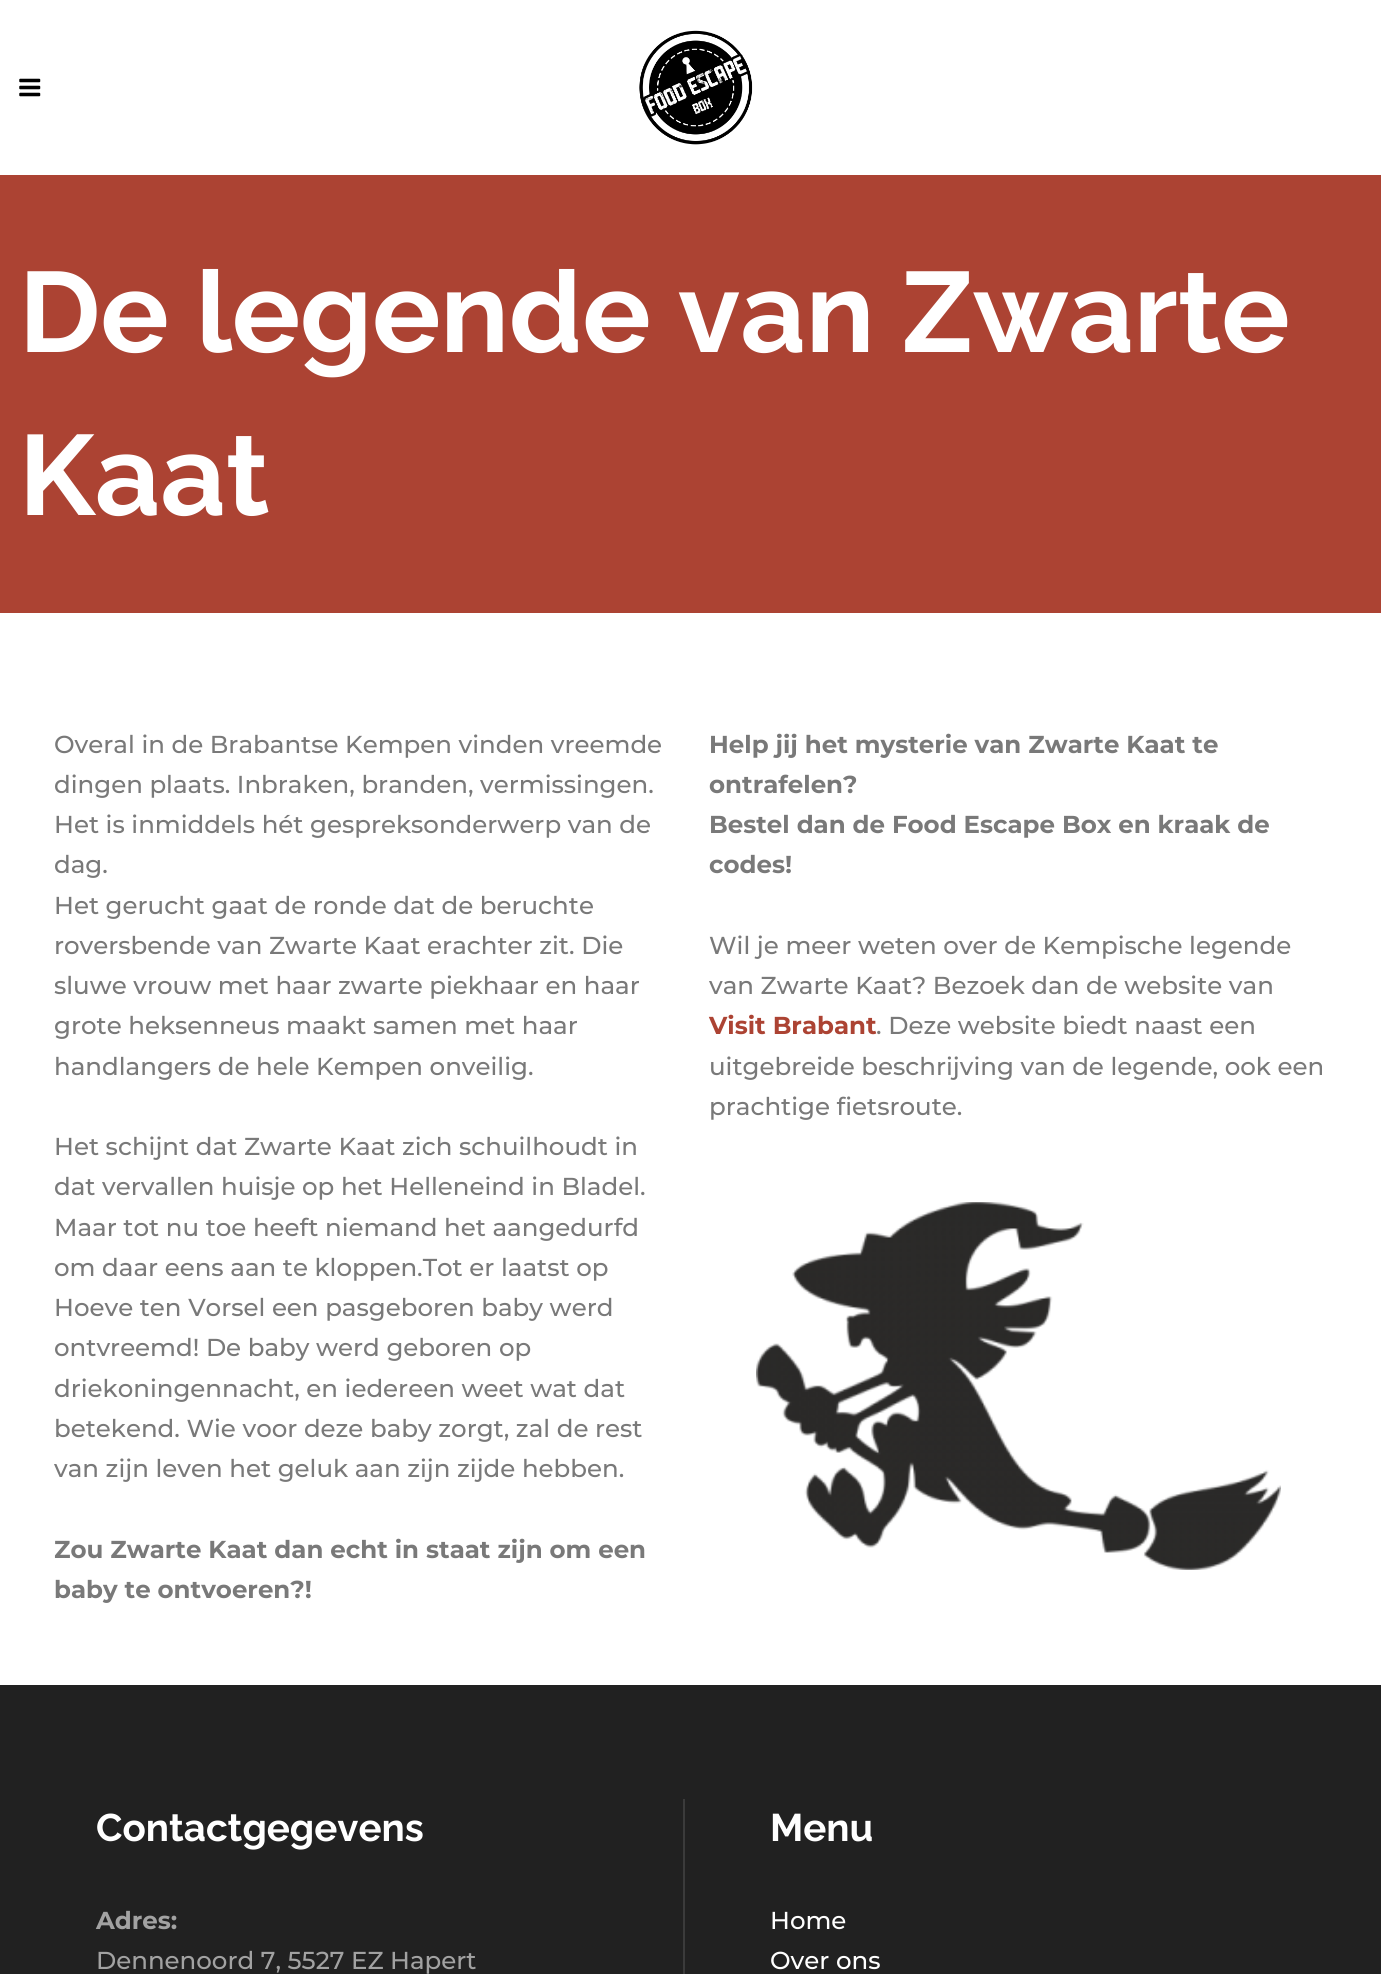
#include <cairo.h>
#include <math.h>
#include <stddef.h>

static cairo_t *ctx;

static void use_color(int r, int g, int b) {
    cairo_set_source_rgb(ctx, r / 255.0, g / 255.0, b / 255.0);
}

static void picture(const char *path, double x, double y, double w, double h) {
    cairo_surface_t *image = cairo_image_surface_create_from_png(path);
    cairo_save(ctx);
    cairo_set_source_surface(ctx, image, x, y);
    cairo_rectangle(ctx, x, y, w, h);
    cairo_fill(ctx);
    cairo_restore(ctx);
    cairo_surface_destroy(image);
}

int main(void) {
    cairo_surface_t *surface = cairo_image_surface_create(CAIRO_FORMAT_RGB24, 1381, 1974);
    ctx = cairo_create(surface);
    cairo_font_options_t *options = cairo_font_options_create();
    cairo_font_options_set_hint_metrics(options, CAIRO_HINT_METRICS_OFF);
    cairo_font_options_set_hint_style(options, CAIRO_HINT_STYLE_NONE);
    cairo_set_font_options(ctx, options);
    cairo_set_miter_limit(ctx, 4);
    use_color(255, 255, 255);
    cairo_paint(ctx);
    picture("img1.png", 19, 78, 22, 19);
    picture("img2.png", 639, 30, 114, 115);
    use_color(172, 67, 51);
    cairo_rectangle(ctx, 0, 175, 1381, 438);
    cairo_fill(ctx);
    cairo_select_font_face(ctx, "Raleway", CAIRO_FONT_SLANT_NORMAL, CAIRO_FONT_WEIGHT_BOLD);
    cairo_set_font_size(ctx, 113.75);
    use_color(255, 255, 255);
    cairo_move_to(ctx, 19, 352);
    cairo_show_text(ctx, "De legende van Zwarte");
    cairo_move_to(ctx, 19, 515);
    cairo_show_text(ctx, "Kaat");
    cairo_select_font_face(ctx, "Montserrat Medium", CAIRO_FONT_SLANT_NORMAL, CAIRO_FONT_WEIGHT_NORMAL);
    cairo_set_font_size(ctx, 24.5);
    use_color(121, 121, 121);
    cairo_move_to(ctx, 54, 753);
    cairo_show_text(ctx, "Overal in de Brabantse Kempen vinden vreemde");
    cairo_move_to(ctx, 54, 793);
    cairo_show_text(ctx, "dingen plaats. Inbraken, branden, vermissingen.");
    cairo_move_to(ctx, 54, 833);
    cairo_show_text(ctx, "Het is inmiddels hét gespreksonderwerp van de");
    cairo_move_to(ctx, 54, 873);
    cairo_show_text(ctx, "dag.");
    cairo_move_to(ctx, 54, 914);
    cairo_show_text(ctx, "Het gerucht gaat de ronde dat de beruchte");
    cairo_move_to(ctx, 54, 954);
    cairo_show_text(ctx, "roversbende van Zwarte Kaat erachter zit. Die");
    cairo_move_to(ctx, 54, 994);
    cairo_show_text(ctx, "sluwe vrouw met haar zwarte piekhaar en haar");
    cairo_move_to(ctx, 54, 1034);
    cairo_show_text(ctx, "grote heksenneus maakt samen met haar");
    cairo_move_to(ctx, 54, 1075);
    cairo_show_text(ctx, "handlangers de hele Kempen onveilig.");
    cairo_move_to(ctx, 54, 1155);
    cairo_show_text(ctx, "Het schijnt dat Zwarte Kaat zich schuilhoudt in");
    cairo_move_to(ctx, 54, 1195);
    cairo_show_text(ctx, "dat vervallen huisje op het Helleneind in Bladel.");
    cairo_move_to(ctx, 54, 1236);
    cairo_show_text(ctx, "Maar tot nu toe heeft niemand het aangedurfd");
    cairo_move_to(ctx, 54, 1276);
    cairo_show_text(ctx, "om daar eens aan te kloppen.Tot er laatst op");
    cairo_move_to(ctx, 54, 1316);
    cairo_show_text(ctx, "Hoeve ten Vorsel een pasgeboren baby werd");
    cairo_move_to(ctx, 54, 1356);
    cairo_show_text(ctx, "ontvreemd! De baby werd geboren op");
    cairo_move_to(ctx, 54, 1397);
    cairo_show_text(ctx, "driekoningennacht, en iedereen weet wat dat");
    cairo_move_to(ctx, 54, 1437);
    cairo_show_text(ctx, "betekend. Wie voor deze baby zorgt, zal de rest");
    cairo_move_to(ctx, 54, 1477);
    cairo_show_text(ctx, "van zijn leven het geluk aan zijn zijde hebben.");
    cairo_select_font_face(ctx, "Montserrat", CAIRO_FONT_SLANT_NORMAL, CAIRO_FONT_WEIGHT_BOLD);
    cairo_move_to(ctx, 54, 1558);
    cairo_show_text(ctx, "Zou Zwarte Kaat dan echt in staat zijn om een");
    cairo_move_to(ctx, 54, 1598);
    cairo_show_text(ctx, "baby te ontvoeren?!");
    cairo_move_to(ctx, 709, 753);
    cairo_show_text(ctx, "Help jij het mysterie van Zwarte Kaat te");
    cairo_move_to(ctx, 709, 793);
    cairo_show_text(ctx, "ontrafelen?");
    cairo_move_to(ctx, 709, 833);
    cairo_show_text(ctx, "Bestel dan de Food Escape Box en kraak de");
    cairo_move_to(ctx, 709, 873);
    cairo_show_text(ctx, "codes!");
    cairo_select_font_face(ctx, "Montserrat Medium", CAIRO_FONT_SLANT_NORMAL, CAIRO_FONT_WEIGHT_NORMAL);
    cairo_move_to(ctx, 709, 954);
    cairo_show_text(ctx, "Wil je meer weten over de Kempische legende");
    cairo_move_to(ctx, 709, 994);
    cairo_show_text(ctx, "van Zwarte Kaat? Bezoek dan de website van");
    cairo_select_font_face(ctx, "Montserrat", CAIRO_FONT_SLANT_NORMAL, CAIRO_FONT_WEIGHT_BOLD);
    use_color(172, 67, 51);
    cairo_move_to(ctx, 709, 1034);
    cairo_show_text(ctx, "Visit Brabant");
    cairo_select_font_face(ctx, "Montserrat Medium", CAIRO_FONT_SLANT_NORMAL, CAIRO_FONT_WEIGHT_NORMAL);
    use_color(121, 121, 121);
    cairo_move_to(ctx, 876, 1034);
    cairo_show_text(ctx, ". Deze website biedt naast een");
    cairo_move_to(ctx, 709, 1075);
    cairo_show_text(ctx, "uitgebreide beschrijving van de legende, ook een");
    cairo_move_to(ctx, 709, 1115);
    cairo_show_text(ctx, "prachtige fietsroute.");
    picture("img3.png", 756, 1202, 525, 368);
    use_color(33, 33, 33);
    cairo_rectangle(ctx, 0, 1685, 1381, 289);
    cairo_fill(ctx);
    use_color(59, 59, 59);
    cairo_rectangle(ctx, 683, 1799, 2, 175);
    cairo_fill(ctx);
    cairo_select_font_face(ctx, "Raleway", CAIRO_FONT_SLANT_NORMAL, CAIRO_FONT_WEIGHT_BOLD);
    cairo_set_font_size(ctx, 38.5);
    use_color(255, 255, 255);
    cairo_move_to(ctx, 96, 1841);
    cairo_show_text(ctx, "Contactgegevens");
    cairo_select_font_face(ctx, "Montserrat", CAIRO_FONT_SLANT_NORMAL, CAIRO_FONT_WEIGHT_BOLD);
    cairo_set_font_size(ctx, 24.5);
    use_color(162, 162, 162);
    cairo_move_to(ctx, 96, 1929);
    cairo_show_text(ctx, "Adres:");
    cairo_select_font_face(ctx, "Montserrat Medium", CAIRO_FONT_SLANT_NORMAL, CAIRO_FONT_WEIGHT_NORMAL);
    cairo_move_to(ctx, 96, 1969);
    cairo_show_text(ctx, "Dennenoord 7, 5527 EZ Hapert");
    cairo_select_font_face(ctx, "Raleway", CAIRO_FONT_SLANT_NORMAL, CAIRO_FONT_WEIGHT_BOLD);
    cairo_set_font_size(ctx, 38.5);
    use_color(255, 255, 255);
    cairo_move_to(ctx, 770, 1841);
    cairo_show_text(ctx, "Menu");
    cairo_select_font_face(ctx, "Montserrat Medium", CAIRO_FONT_SLANT_NORMAL, CAIRO_FONT_WEIGHT_NORMAL);
    cairo_set_font_size(ctx, 24.5);
    cairo_move_to(ctx, 770, 1929);
    cairo_show_text(ctx, "Home");
    cairo_move_to(ctx, 770, 1969);
    cairo_show_text(ctx, "Over ons");
    cairo_surface_write_to_png(surface, "result.png");
    cairo_font_options_destroy(options);
    cairo_destroy(ctx);
    cairo_surface_destroy(surface);
    return 0;
}
